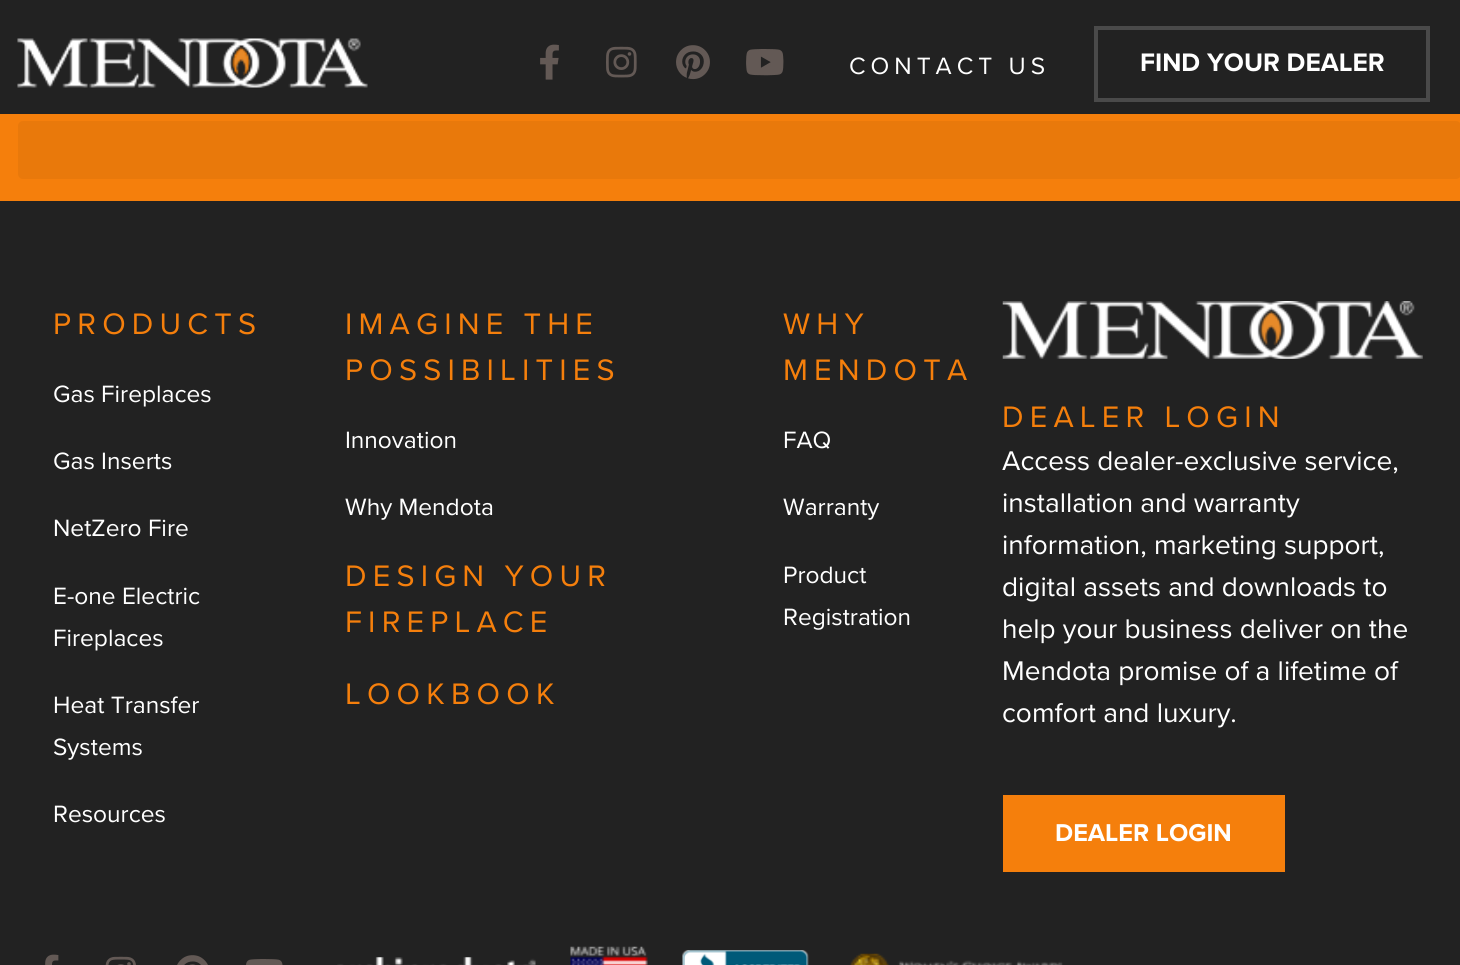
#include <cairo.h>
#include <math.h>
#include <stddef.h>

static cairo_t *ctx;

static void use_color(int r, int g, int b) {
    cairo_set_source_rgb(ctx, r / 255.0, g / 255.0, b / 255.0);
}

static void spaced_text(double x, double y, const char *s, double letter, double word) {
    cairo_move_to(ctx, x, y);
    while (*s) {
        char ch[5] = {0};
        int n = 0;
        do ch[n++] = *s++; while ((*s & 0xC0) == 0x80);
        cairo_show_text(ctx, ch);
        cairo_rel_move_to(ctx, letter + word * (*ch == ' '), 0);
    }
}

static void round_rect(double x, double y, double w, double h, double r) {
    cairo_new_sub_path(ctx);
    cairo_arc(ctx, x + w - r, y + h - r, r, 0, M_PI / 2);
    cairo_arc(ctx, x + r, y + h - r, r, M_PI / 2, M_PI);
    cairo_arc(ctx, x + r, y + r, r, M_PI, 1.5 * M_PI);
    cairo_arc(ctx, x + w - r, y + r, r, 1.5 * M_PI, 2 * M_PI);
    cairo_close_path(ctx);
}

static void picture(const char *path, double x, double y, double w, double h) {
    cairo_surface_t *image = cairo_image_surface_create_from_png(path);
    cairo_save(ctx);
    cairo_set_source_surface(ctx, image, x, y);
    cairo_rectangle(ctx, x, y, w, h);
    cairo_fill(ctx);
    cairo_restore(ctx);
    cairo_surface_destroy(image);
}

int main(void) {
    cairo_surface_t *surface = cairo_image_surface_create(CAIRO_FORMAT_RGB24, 1460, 965);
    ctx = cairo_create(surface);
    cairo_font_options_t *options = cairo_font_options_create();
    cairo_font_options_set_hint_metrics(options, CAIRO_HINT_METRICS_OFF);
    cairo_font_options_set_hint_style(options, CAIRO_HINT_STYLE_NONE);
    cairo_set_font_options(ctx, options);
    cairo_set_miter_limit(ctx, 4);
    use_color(34, 34, 34);
    cairo_paint(ctx);
    picture("img1.png", 17, 38, 351, 50);
    picture("img2.png", 540, 44, 19, 36);
    picture("img3.png", 606, 46, 31, 32);
    picture("img4.png", 676, 45, 34, 35);
    picture("img5.png", 746, 49, 38, 27);
    cairo_select_font_face(ctx, "Proxima Nova", CAIRO_FONT_SLANT_NORMAL, CAIRO_FONT_WEIGHT_NORMAL);
    cairo_set_font_size(ctx, 24.5);
    use_color(255, 255, 255);
    spaced_text(849, 74, "CONTACT US", 5, 0);
    cairo_rectangle(ctx, 1096, 28, 332, 72);
    use_color(74, 74, 74);
    cairo_set_line_width(ctx, 4);
    cairo_stroke(ctx);
    cairo_select_font_face(ctx, "Proxima Nova", CAIRO_FONT_SLANT_NORMAL, CAIRO_FONT_WEIGHT_BOLD);
    cairo_set_font_size(ctx, 26.25);
    use_color(255, 255, 255);
    cairo_move_to(ctx, 1140, 71);
    cairo_show_text(ctx, "FIND YOUR DEALER");
    use_color(245, 127, 12);
    cairo_rectangle(ctx, 0, 114, 1460, 87);
    cairo_fill(ctx);
    use_color(233, 121, 11);
    round_rect(18, 121, 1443, 58, 5);
    cairo_fill(ctx);
    cairo_select_font_face(ctx, "Proxima Nova", CAIRO_FONT_SLANT_NORMAL, CAIRO_FONT_WEIGHT_NORMAL);
    cairo_set_font_size(ctx, 30.75);
    use_color(245, 127, 12);
    spaced_text(53, 334, "PRODUCTS", 6.2, 0);
    cairo_set_font_size(ctx, 24.5);
    use_color(255, 255, 255);
    cairo_move_to(ctx, 53, 402);
    cairo_show_text(ctx, "Gas Fireplaces");
    cairo_move_to(ctx, 53, 469);
    cairo_show_text(ctx, "Gas Inserts");
    cairo_move_to(ctx, 53, 536);
    cairo_show_text(ctx, "NetZero Fire");
    cairo_move_to(ctx, 53, 604);
    cairo_show_text(ctx, "E-one Electric");
    cairo_move_to(ctx, 53, 646);
    cairo_show_text(ctx, "Fireplaces");
    cairo_move_to(ctx, 53, 713);
    cairo_show_text(ctx, "Heat Transfer");
    cairo_move_to(ctx, 53, 755);
    cairo_show_text(ctx, "Systems");
    cairo_move_to(ctx, 53, 822);
    cairo_show_text(ctx, "Resources");
    cairo_set_font_size(ctx, 30.75);
    use_color(245, 127, 12);
    spaced_text(345, 334, "IMAGINE THE", 6.2, 0);
    spaced_text(345, 380, "POSSIBILITIES", 6.2, 0);
    cairo_set_font_size(ctx, 24.5);
    use_color(255, 255, 255);
    cairo_move_to(ctx, 345, 448);
    cairo_show_text(ctx, "Innovation");
    cairo_move_to(ctx, 345, 515);
    cairo_show_text(ctx, "Why Mendota");
    cairo_set_font_size(ctx, 30.75);
    use_color(245, 127, 12);
    spaced_text(345, 586, "DESIGN YOUR", 6.2, 0);
    spaced_text(345, 632, "FIREPLACE", 6.2, 0);
    spaced_text(345, 704, "LOOKBOOK", 6.2, 0);
    spaced_text(783, 334, "WHY", 6.2, 0);
    spaced_text(783, 380, "MENDOTA", 6.2, 0);
    cairo_set_font_size(ctx, 24.5);
    use_color(255, 255, 255);
    cairo_move_to(ctx, 783, 448);
    cairo_show_text(ctx, "FAQ");
    cairo_move_to(ctx, 783, 515);
    cairo_show_text(ctx, "Warranty");
    cairo_move_to(ctx, 783, 583);
    cairo_show_text(ctx, "Product");
    cairo_move_to(ctx, 783, 625);
    cairo_show_text(ctx, "Registration");
    picture("img6.png", 1002, 301, 421, 58);
    cairo_set_font_size(ctx, 30.75);
    use_color(245, 127, 12);
    spaced_text(1002, 427, "DEALER LOGIN", 6.2, 0);
    cairo_set_font_size(ctx, 28);
    use_color(255, 255, 255);
    cairo_move_to(ctx, 1002, 470);
    cairo_show_text(ctx, "Access dealer-exclusive service,");
    cairo_move_to(ctx, 1002, 512);
    cairo_show_text(ctx, "installation and warranty");
    cairo_move_to(ctx, 1002, 554);
    cairo_show_text(ctx, "information, marketing support,");
    cairo_move_to(ctx, 1002, 596);
    cairo_show_text(ctx, "digital assets and downloads to");
    cairo_move_to(ctx, 1002, 638);
    cairo_show_text(ctx, "help your business deliver on the");
    cairo_move_to(ctx, 1002, 680);
    cairo_show_text(ctx, "Mendota promise of a lifetime of");
    cairo_move_to(ctx, 1002, 722);
    cairo_show_text(ctx, "comfort and luxury.");
    use_color(245, 127, 12);
    cairo_rectangle(ctx, 1003, 795, 282, 77);
    cairo_fill(ctx);
    cairo_select_font_face(ctx, "Proxima Nova", CAIRO_FONT_SLANT_NORMAL, CAIRO_FONT_WEIGHT_BOLD);
    cairo_set_font_size(ctx, 25.25);
    use_color(255, 255, 255);
    cairo_move_to(ctx, 1055, 841);
    cairo_show_text(ctx, "DEALER LOGIN");
    picture("img7.png", 45, 954, 14, 11);
    picture("img8.png", 105, 956, 31, 9);
    picture("img9.png", 177, 955, 31, 10);
    picture("img10.png", 246, 959, 37, 6);
    picture("img11.png", 337, 957, 199, 8);
    picture("img12.png", 570, 946, 78, 19);
    picture("img13.png", 682, 950, 127, 15);
    picture("img14.png", 850, 953, 213, 12);
    cairo_surface_write_to_png(surface, "result.png");
    cairo_font_options_destroy(options);
    cairo_destroy(ctx);
    cairo_surface_destroy(surface);
    return 0;
}
